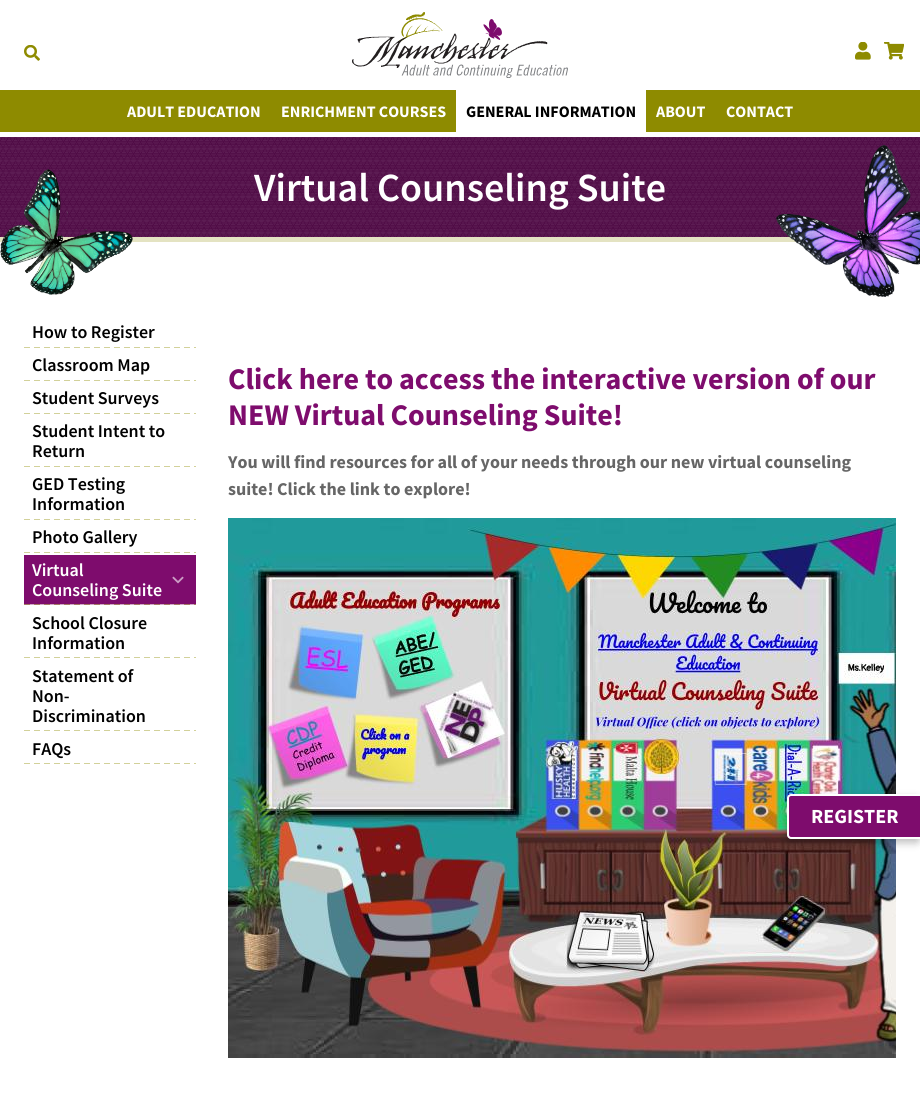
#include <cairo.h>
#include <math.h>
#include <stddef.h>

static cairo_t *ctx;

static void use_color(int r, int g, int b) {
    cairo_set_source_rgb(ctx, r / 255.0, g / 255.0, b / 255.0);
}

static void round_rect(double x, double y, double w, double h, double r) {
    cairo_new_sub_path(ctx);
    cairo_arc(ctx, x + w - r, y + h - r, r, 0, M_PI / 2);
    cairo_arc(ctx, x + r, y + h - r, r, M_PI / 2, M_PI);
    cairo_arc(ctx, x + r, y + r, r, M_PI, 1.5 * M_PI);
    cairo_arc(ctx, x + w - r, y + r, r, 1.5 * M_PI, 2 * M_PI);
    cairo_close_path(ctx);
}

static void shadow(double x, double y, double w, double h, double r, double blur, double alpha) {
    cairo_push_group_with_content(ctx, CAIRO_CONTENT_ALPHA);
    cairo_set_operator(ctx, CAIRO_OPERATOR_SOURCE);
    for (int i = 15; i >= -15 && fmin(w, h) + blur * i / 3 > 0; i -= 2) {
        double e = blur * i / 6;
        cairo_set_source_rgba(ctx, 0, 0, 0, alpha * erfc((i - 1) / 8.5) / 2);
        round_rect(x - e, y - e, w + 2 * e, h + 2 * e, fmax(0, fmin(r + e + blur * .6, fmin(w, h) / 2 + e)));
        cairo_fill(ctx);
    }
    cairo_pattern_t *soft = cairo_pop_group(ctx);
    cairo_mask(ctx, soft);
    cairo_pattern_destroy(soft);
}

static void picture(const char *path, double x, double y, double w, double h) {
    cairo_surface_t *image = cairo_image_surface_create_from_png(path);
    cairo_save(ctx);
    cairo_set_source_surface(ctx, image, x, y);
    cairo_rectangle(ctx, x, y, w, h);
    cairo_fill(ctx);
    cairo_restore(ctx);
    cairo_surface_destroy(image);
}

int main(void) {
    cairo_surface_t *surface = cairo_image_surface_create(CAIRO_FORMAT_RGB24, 920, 1108);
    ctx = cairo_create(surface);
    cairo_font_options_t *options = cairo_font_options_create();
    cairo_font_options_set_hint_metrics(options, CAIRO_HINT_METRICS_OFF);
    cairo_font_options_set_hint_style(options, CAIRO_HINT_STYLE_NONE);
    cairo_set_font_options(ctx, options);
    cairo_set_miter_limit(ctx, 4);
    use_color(255, 255, 255);
    cairo_paint(ctx);
    picture("img1.png", 352, 12, 216, 66);
    picture("img2.png", 24, 45, 16, 16);
    picture("img3.png", 855, 42, 16, 18);
    picture("img4.png", 884, 42, 20, 18);
    use_color(142, 139, 0);
    cairo_rectangle(ctx, 0, 90, 920, 42);
    cairo_fill(ctx);
    cairo_select_font_face(ctx, "Source Sans Pro", CAIRO_FONT_SLANT_NORMAL, CAIRO_FONT_WEIGHT_BOLD);
    cairo_set_font_size(ctx, 16);
    use_color(255, 255, 255);
    cairo_move_to(ctx, 127, 117);
    cairo_show_text(ctx, "ADULT EDUCATION");
    cairo_move_to(ctx, 281, 117);
    cairo_show_text(ctx, "ENRICHMENT COURSES");
    cairo_rectangle(ctx, 456, 90, 190, 42);
    cairo_fill(ctx);
    use_color(0, 0, 0);
    cairo_move_to(ctx, 466, 117);
    cairo_show_text(ctx, "GENERAL INFORMATION");
    use_color(255, 255, 255);
    cairo_move_to(ctx, 656, 117);
    cairo_show_text(ctx, "ABOUT");
    cairo_move_to(ctx, 726, 117);
    cairo_show_text(ctx, "CONTACT");
    use_color(79, 10, 69);
    cairo_rectangle(ctx, 0, 137, 920, 100);
    cairo_fill(ctx);
    picture("img6.png", 0, 137, 920, 100);
    use_color(228, 227, 194);
    cairo_rectangle(ctx, 0, 237, 796, 5);
    cairo_fill(ctx);
    picture("img5.png", 0, 169, 133, 126);
    cairo_select_font_face(ctx, "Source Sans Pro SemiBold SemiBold", CAIRO_FONT_SLANT_NORMAL, CAIRO_FONT_WEIGHT_NORMAL);
    cairo_set_font_size(ctx, 40);
    use_color(255, 255, 255);
    cairo_move_to(ctx, 254, 201);
    cairo_show_text(ctx, "Virtual Counseling Suite");
    picture("img7.png", 776, 145, 144, 152);
    cairo_set_font_size(ctx, 18);
    use_color(0, 0, 0);
    cairo_move_to(ctx, 32, 338);
    cairo_show_text(ctx, "How to Register");
    picture("img8.png", 24, 347, 172, 1);
    cairo_move_to(ctx, 32, 371);
    cairo_show_text(ctx, "Classroom Map");
    picture("img8.png", 24, 380, 172, 1);
    cairo_move_to(ctx, 32, 404);
    cairo_show_text(ctx, "Student Surveys");
    picture("img8.png", 24, 413, 172, 1);
    cairo_move_to(ctx, 32, 437);
    cairo_show_text(ctx, "Student Intent to");
    cairo_move_to(ctx, 32, 457);
    cairo_show_text(ctx, "Return");
    picture("img8.png", 24, 466, 172, 1);
    cairo_move_to(ctx, 32, 490);
    cairo_show_text(ctx, "GED Testing");
    cairo_move_to(ctx, 32, 510);
    cairo_show_text(ctx, "Information");
    picture("img8.png", 24, 519, 172, 1);
    cairo_move_to(ctx, 32, 543);
    cairo_show_text(ctx, "Photo Gallery");
    picture("img8.png", 24, 552, 172, 1);
    use_color(126, 12, 109);
    cairo_rectangle(ctx, 24, 555, 172, 49);
    cairo_fill(ctx);
    use_color(178, 109, 167);
    cairo_rectangle(ctx, 24, 604, 172, 1);
    cairo_fill(ctx);
    use_color(255, 255, 255);
    cairo_move_to(ctx, 32, 576);
    cairo_show_text(ctx, "Virtual");
    picture("img9.png", 172, 576, 12, 8);
    cairo_move_to(ctx, 32, 596);
    cairo_show_text(ctx, "Counseling Suite");
    picture("img10.png", 24, 604, 172, 1);
    use_color(0, 0, 0);
    cairo_move_to(ctx, 32, 629);
    cairo_show_text(ctx, "School Closure");
    cairo_move_to(ctx, 32, 649);
    cairo_show_text(ctx, "Information");
    picture("img8.png", 24, 657, 172, 1);
    cairo_move_to(ctx, 32, 682);
    cairo_show_text(ctx, "Statement of");
    cairo_move_to(ctx, 32, 702);
    cairo_show_text(ctx, "Non-");
    cairo_move_to(ctx, 32, 722);
    cairo_show_text(ctx, "Discrimination");
    picture("img8.png", 24, 730, 172, 1);
    cairo_move_to(ctx, 32, 755);
    cairo_show_text(ctx, "FAQs");
    picture("img8.png", 24, 763, 172, 1);
    cairo_select_font_face(ctx, "Source Sans Pro", CAIRO_FONT_SLANT_NORMAL, CAIRO_FONT_WEIGHT_BOLD);
    cairo_set_font_size(ctx, 30);
    use_color(126, 12, 109);
    cairo_move_to(ctx, 228, 389);
    cairo_show_text(ctx, "Click here to access the interactive version of our");
    cairo_move_to(ctx, 228, 425);
    cairo_show_text(ctx, "NEW Virtual Counseling Suite!");
    cairo_set_font_size(ctx, 18);
    use_color(102, 102, 102);
    cairo_move_to(ctx, 228, 468);
    cairo_show_text(ctx, "You will find resources for all of your needs through our new virtual counseling");
    cairo_move_to(ctx, 228, 495);
    cairo_show_text(ctx, "suite! Click the link to explore!");
    picture("img11.png", 228, 518, 668, 540);
    use_color(0, 0, 0);
    shadow(787, 798, 133, 45, 4, 4, 0.25);
    use_color(126, 12, 109);
    cairo_new_path(ctx);
    cairo_move_to(ctx, 791, 794);
    cairo_line_to(ctx, 920, 794);
    cairo_line_to(ctx, 920, 839);
    cairo_line_to(ctx, 791, 839);
    cairo_curve_to(ctx, 789, 839, 787, 837, 787, 835);
    cairo_line_to(ctx, 787, 798);
    cairo_curve_to(ctx, 787, 796, 789, 794, 791, 794);
    cairo_close_path(ctx);
    cairo_fill(ctx);
    use_color(255, 255, 255);
    cairo_set_fill_rule(ctx, CAIRO_FILL_RULE_EVEN_ODD);
    cairo_new_path(ctx);
    cairo_move_to(ctx, 791, 794);
    cairo_line_to(ctx, 920, 794);
    cairo_line_to(ctx, 920, 839);
    cairo_line_to(ctx, 791, 839);
    cairo_curve_to(ctx, 789, 839, 787, 837, 787, 835);
    cairo_line_to(ctx, 787, 798);
    cairo_curve_to(ctx, 787, 796, 789, 794, 791, 794);
    cairo_close_path(ctx);
    cairo_move_to(ctx, 791, 796);
    cairo_line_to(ctx, 920, 796);
    cairo_line_to(ctx, 920, 837);
    cairo_line_to(ctx, 791, 837);
    cairo_curve_to(ctx, 790, 837, 789, 836, 789, 835);
    cairo_line_to(ctx, 789, 798);
    cairo_curve_to(ctx, 789, 797, 790, 796, 791, 796);
    cairo_close_path(ctx);
    cairo_fill(ctx);
    cairo_set_font_size(ctx, 20);
    cairo_move_to(ctx, 811, 823);
    cairo_show_text(ctx, "REGISTER");
    cairo_surface_write_to_png(surface, "result.png");
    cairo_font_options_destroy(options);
    cairo_destroy(ctx);
    cairo_surface_destroy(surface);
    return 0;
}
